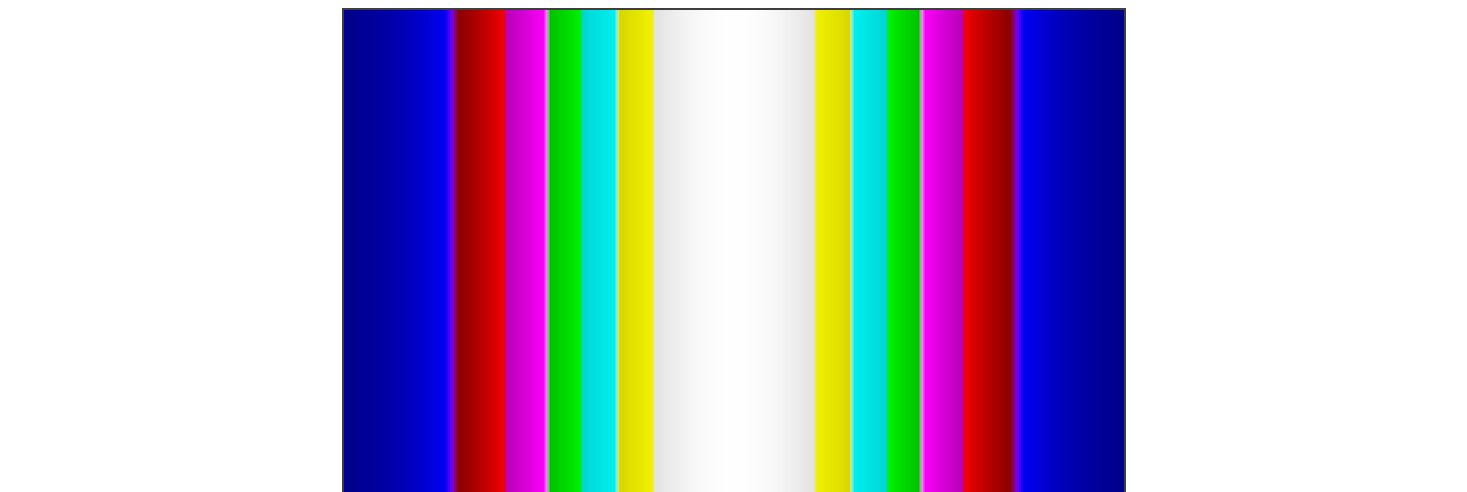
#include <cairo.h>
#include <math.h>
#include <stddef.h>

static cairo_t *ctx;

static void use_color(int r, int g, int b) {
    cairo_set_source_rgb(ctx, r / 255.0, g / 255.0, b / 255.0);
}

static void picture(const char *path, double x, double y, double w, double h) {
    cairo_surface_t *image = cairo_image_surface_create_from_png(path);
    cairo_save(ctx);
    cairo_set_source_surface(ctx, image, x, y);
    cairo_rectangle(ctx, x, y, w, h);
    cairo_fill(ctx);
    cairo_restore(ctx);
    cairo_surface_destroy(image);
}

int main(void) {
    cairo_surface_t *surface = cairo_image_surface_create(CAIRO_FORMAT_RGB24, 1467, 492);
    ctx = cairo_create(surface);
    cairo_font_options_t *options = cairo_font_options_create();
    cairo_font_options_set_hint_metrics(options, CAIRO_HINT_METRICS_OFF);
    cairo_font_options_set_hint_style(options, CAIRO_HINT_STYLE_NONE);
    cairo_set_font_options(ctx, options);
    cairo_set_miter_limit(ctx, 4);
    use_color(255, 255, 255);
    cairo_paint(ctx);
    cairo_rectangle(ctx, 343, 9, 782, 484);
    use_color(63, 63, 63);
    cairo_stroke(ctx);
    picture("img1.png", 344, 10, 780, 482);
    cairo_surface_write_to_png(surface, "result.png");
    cairo_font_options_destroy(options);
    cairo_destroy(ctx);
    cairo_surface_destroy(surface);
    return 0;
}
